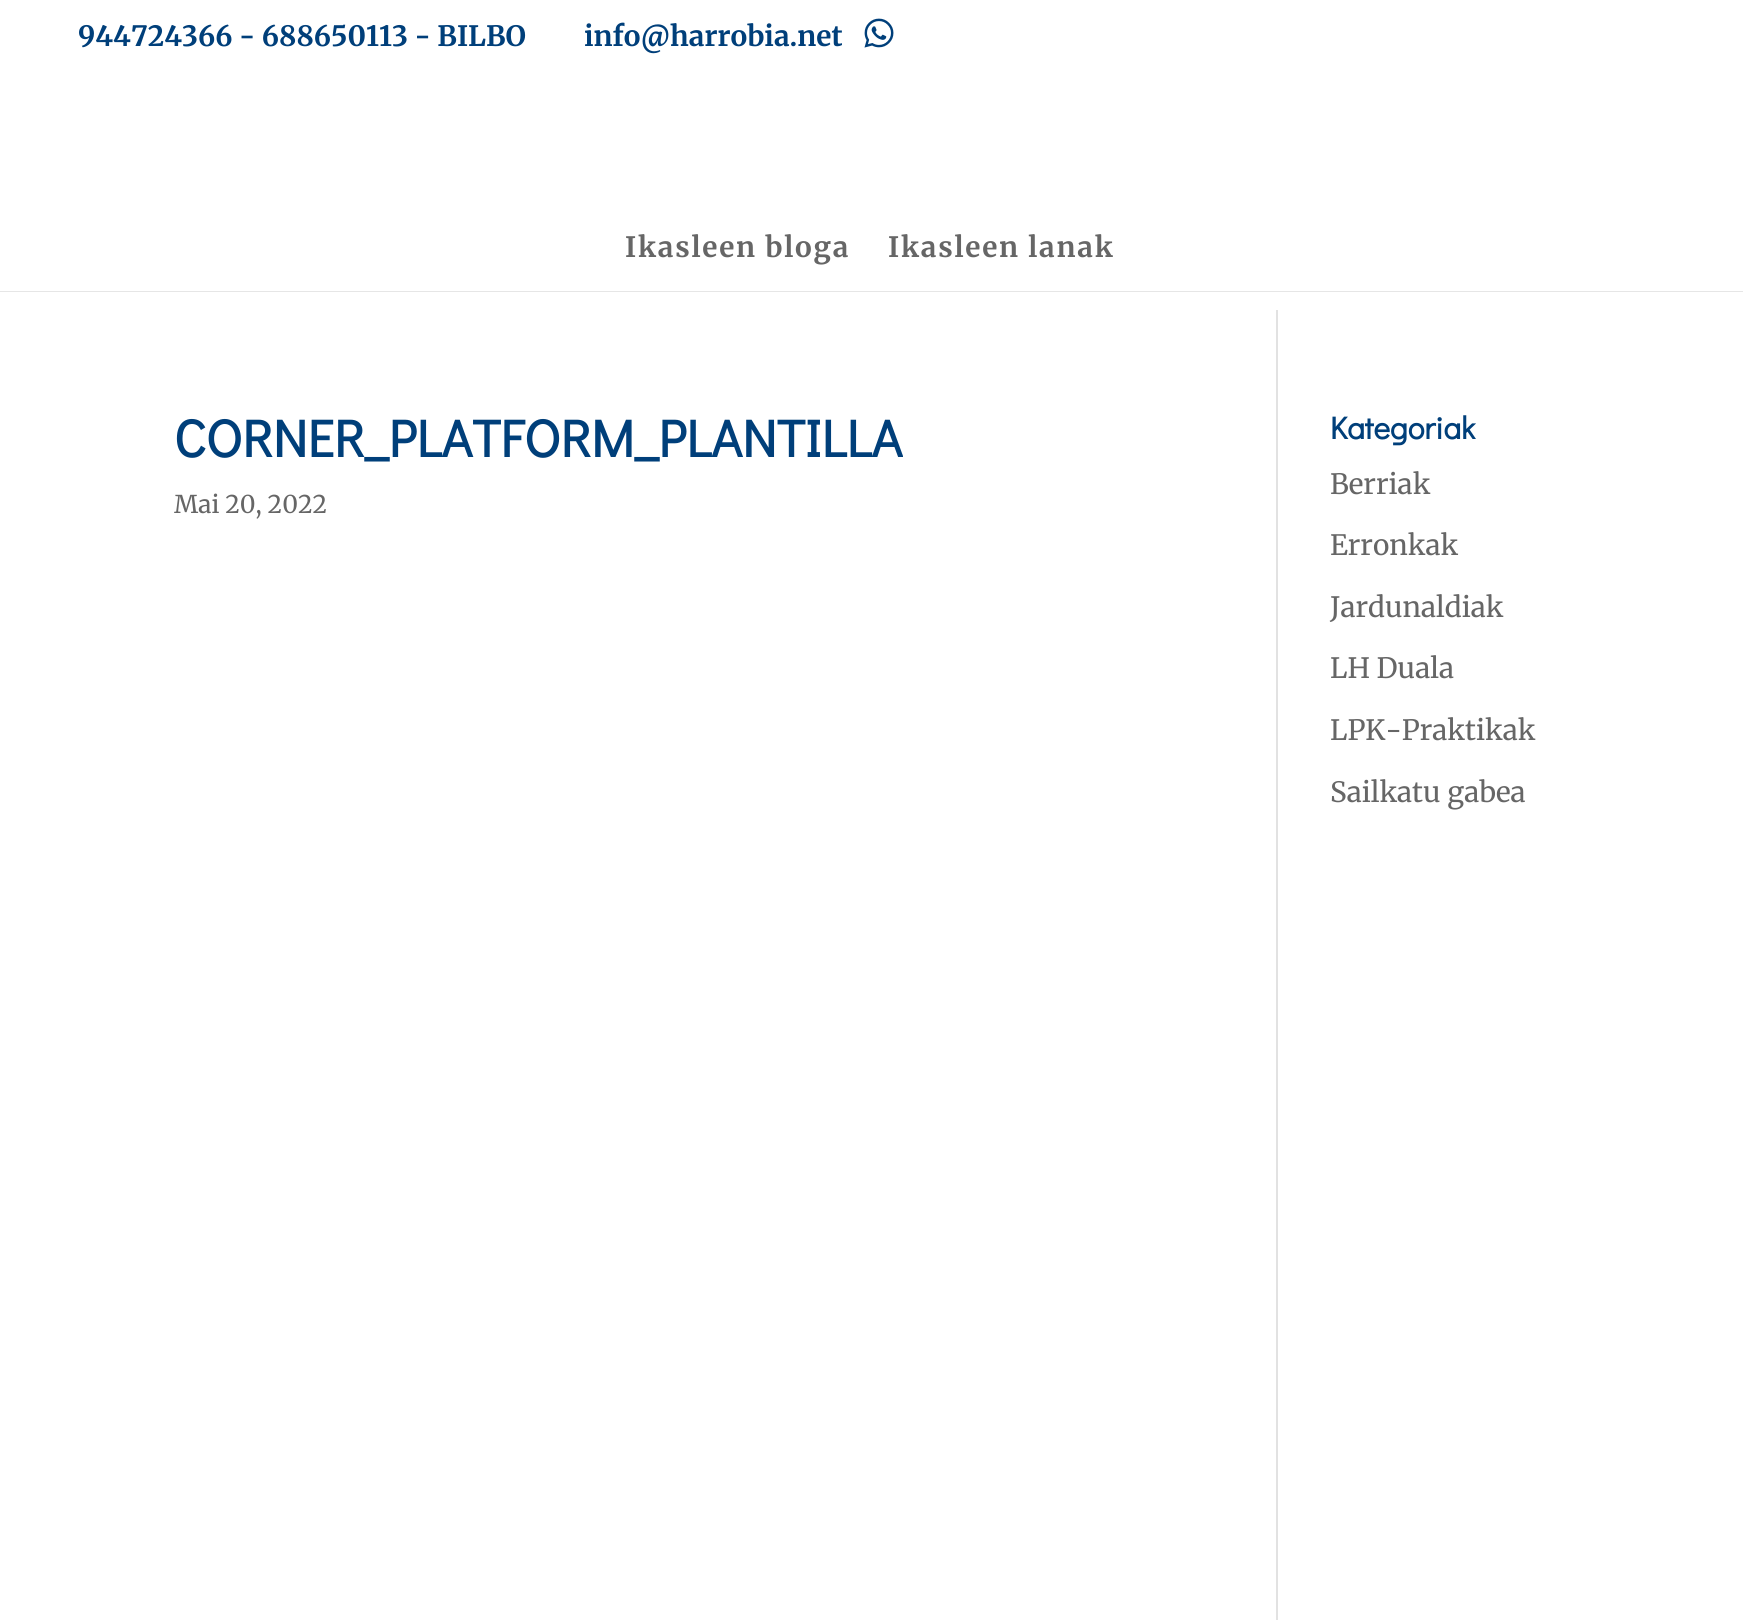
#include <cairo.h>
#include <math.h>
#include <stddef.h>

static cairo_t *ctx;

static void use_color(int r, int g, int b) {
    cairo_set_source_rgb(ctx, r / 255.0, g / 255.0, b / 255.0);
}

static void spaced_text(double x, double y, const char *s, double letter, double word) {
    cairo_move_to(ctx, x, y);
    while (*s) {
        char ch[5] = {0};
        int n = 0;
        do ch[n++] = *s++; while ((*s & 0xC0) == 0x80);
        cairo_show_text(ctx, ch);
        cairo_rel_move_to(ctx, letter + word * (*ch == ' '), 0);
    }
}

static void picture(const char *path, double x, double y, double w, double h) {
    cairo_surface_t *image = cairo_image_surface_create_from_png(path);
    cairo_save(ctx);
    cairo_set_source_surface(ctx, image, x, y);
    cairo_rectangle(ctx, x, y, w, h);
    cairo_fill(ctx);
    cairo_restore(ctx);
    cairo_surface_destroy(image);
}

int main(void) {
    cairo_surface_t *surface = cairo_image_surface_create(CAIRO_FORMAT_RGB24, 1743, 1620);
    ctx = cairo_create(surface);
    cairo_font_options_t *options = cairo_font_options_create();
    cairo_font_options_set_hint_metrics(options, CAIRO_HINT_METRICS_OFF);
    cairo_font_options_set_hint_style(options, CAIRO_HINT_STYLE_NONE);
    cairo_set_font_options(ctx, options);
    cairo_set_miter_limit(ctx, 4);
    use_color(255, 255, 255);
    cairo_paint(ctx);
    cairo_select_font_face(ctx, "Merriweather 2 Light", CAIRO_FONT_SLANT_NORMAL, CAIRO_FONT_WEIGHT_NORMAL);
    cairo_set_font_size(ctx, 28);
    use_color(0, 63, 122);
    cairo_move_to(ctx, 78, 46);
    cairo_show_text(ctx, "944724366 - 688650113 - BILBO");
    cairo_move_to(ctx, 584, 46);
    cairo_show_text(ctx, "info@harrobia.net");
    picture("img1.png", 864, 18, 30, 30);
    use_color(230, 230, 230);
    cairo_rectangle(ctx, 0, 291, 1743, 1);
    cairo_fill(ctx);
    use_color(102, 102, 102);
    spaced_text(625, 257, "Ikasleen bloga", 1.75, 0);
    spaced_text(888, 257, "Ikasleen lanak", 1.75, 0);
    use_color(226, 226, 226);
    cairo_rectangle(ctx, 1276, 310, 2, 1310);
    cairo_fill(ctx);
    cairo_select_font_face(ctx, "Didact Gothic", CAIRO_FONT_SLANT_NORMAL, CAIRO_FONT_WEIGHT_BOLD);
    cairo_set_font_size(ctx, 52.5);
    use_color(0, 63, 122);
    cairo_move_to(ctx, 174, 457);
    cairo_show_text(ctx, "CORNER_PLATFORM_PLANTILLA");
    cairo_select_font_face(ctx, "Merriweather Light", CAIRO_FONT_SLANT_NORMAL, CAIRO_FONT_WEIGHT_NORMAL);
    cairo_set_font_size(ctx, 24.5);
    use_color(102, 102, 102);
    cairo_move_to(ctx, 174, 513);
    cairo_show_text(ctx, "Mai 20, 2022");
    cairo_select_font_face(ctx, "Didact Gothic", CAIRO_FONT_SLANT_NORMAL, CAIRO_FONT_WEIGHT_BOLD);
    cairo_set_font_size(ctx, 31.5);
    use_color(0, 63, 122);
    cairo_move_to(ctx, 1330, 439);
    cairo_show_text(ctx, "Kategoriak");
    cairo_select_font_face(ctx, "Merriweather Light", CAIRO_FONT_SLANT_NORMAL, CAIRO_FONT_WEIGHT_NORMAL);
    cairo_set_font_size(ctx, 28);
    use_color(102, 102, 102);
    cairo_move_to(ctx, 1330, 494);
    cairo_show_text(ctx, "Berriak");
    cairo_move_to(ctx, 1330, 555);
    cairo_show_text(ctx, "Erronkak");
    cairo_move_to(ctx, 1330, 617);
    cairo_show_text(ctx, "Jardunaldiak");
    cairo_move_to(ctx, 1330, 678);
    cairo_show_text(ctx, "LH Duala");
    cairo_move_to(ctx, 1330, 740);
    cairo_show_text(ctx, "LPK-Praktikak");
    cairo_move_to(ctx, 1330, 802);
    cairo_show_text(ctx, "Sailkatu gabea");
    cairo_surface_write_to_png(surface, "result.png");
    cairo_font_options_destroy(options);
    cairo_destroy(ctx);
    cairo_surface_destroy(surface);
    return 0;
}
